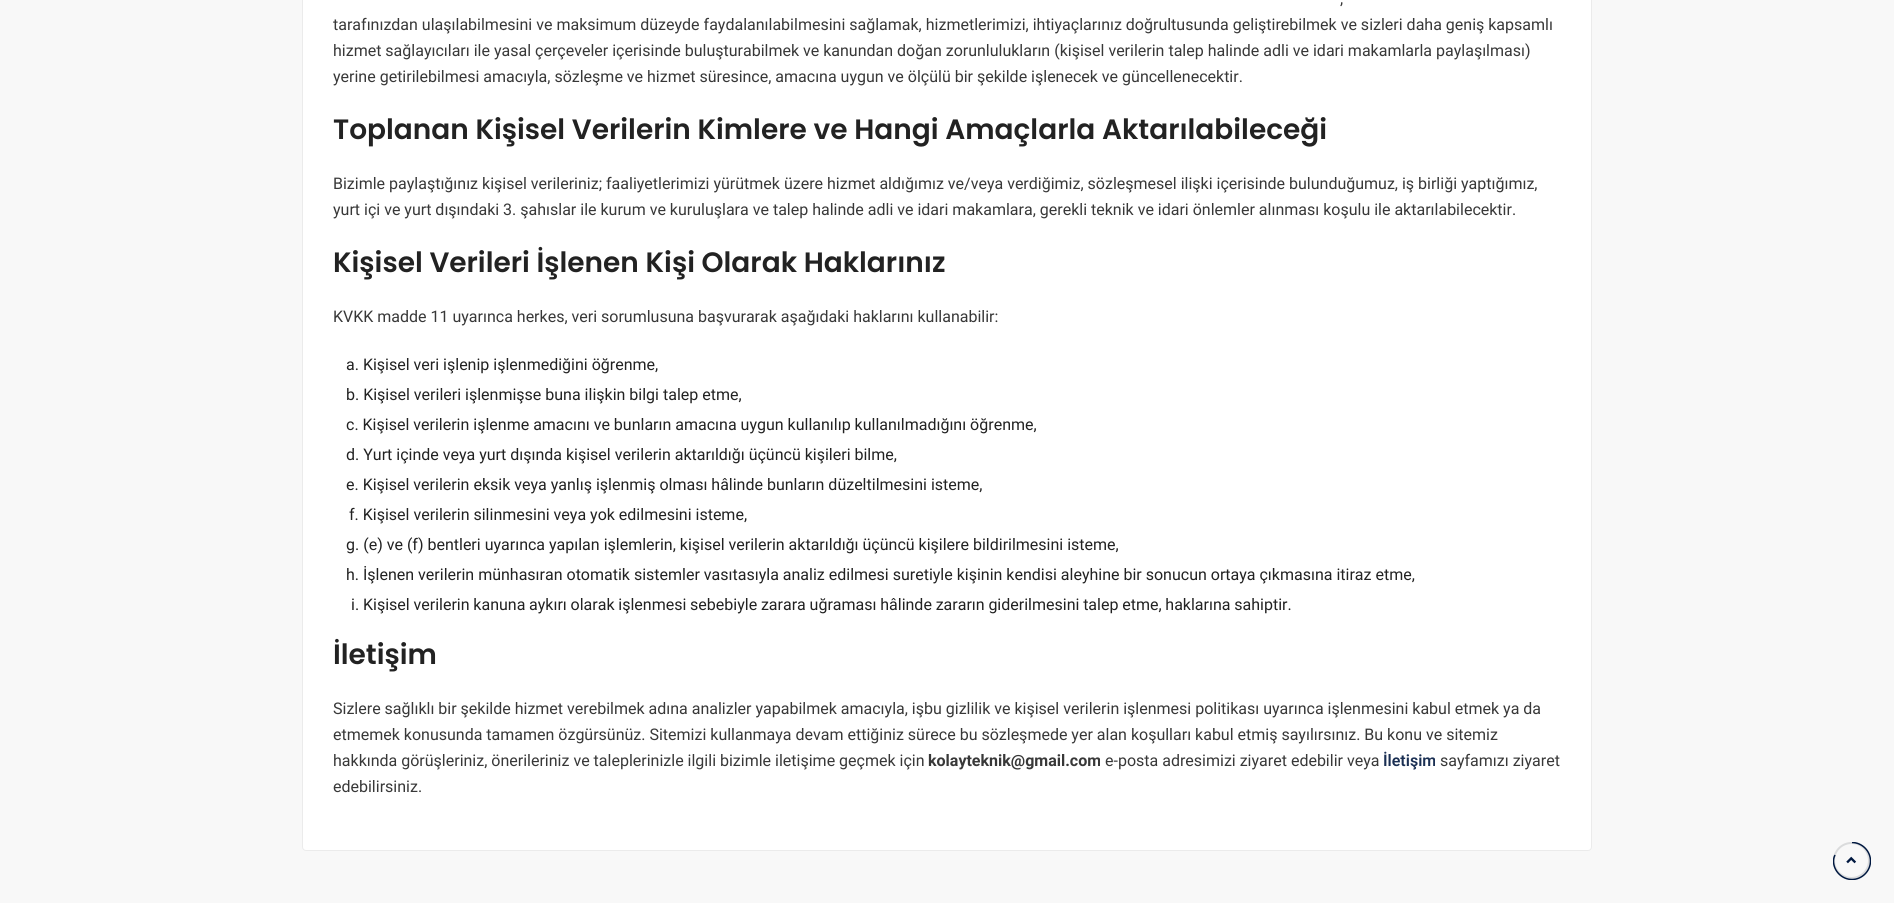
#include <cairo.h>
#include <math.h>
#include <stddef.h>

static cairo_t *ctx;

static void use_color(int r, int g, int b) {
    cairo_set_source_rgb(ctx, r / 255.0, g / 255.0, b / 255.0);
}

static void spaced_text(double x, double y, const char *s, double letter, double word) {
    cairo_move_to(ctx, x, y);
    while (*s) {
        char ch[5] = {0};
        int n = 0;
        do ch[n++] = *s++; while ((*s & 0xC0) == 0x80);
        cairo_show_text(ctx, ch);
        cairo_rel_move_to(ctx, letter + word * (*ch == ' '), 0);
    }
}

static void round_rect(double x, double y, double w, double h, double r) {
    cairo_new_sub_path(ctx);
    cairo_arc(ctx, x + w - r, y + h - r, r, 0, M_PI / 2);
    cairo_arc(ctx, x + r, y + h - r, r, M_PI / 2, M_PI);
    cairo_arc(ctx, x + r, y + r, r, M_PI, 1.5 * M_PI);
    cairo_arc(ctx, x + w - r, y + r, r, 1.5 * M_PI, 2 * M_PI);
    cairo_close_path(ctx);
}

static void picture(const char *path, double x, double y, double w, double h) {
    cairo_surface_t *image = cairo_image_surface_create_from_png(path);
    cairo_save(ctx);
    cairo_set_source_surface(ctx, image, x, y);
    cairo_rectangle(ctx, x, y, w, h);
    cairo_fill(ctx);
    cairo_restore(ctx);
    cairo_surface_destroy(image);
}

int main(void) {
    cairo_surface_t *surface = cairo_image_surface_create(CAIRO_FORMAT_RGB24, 1894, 903);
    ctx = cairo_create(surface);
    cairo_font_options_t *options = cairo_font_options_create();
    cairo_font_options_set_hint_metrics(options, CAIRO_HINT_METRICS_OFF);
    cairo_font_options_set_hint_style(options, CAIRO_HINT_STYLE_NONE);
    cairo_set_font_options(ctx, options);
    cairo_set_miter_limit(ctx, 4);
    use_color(248, 248, 248);
    cairo_paint(ctx);
    use_color(255, 255, 255);
    round_rect(302.5, -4.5, 1289, 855, 3.5);
    cairo_fill_preserve(ctx);
    use_color(235, 235, 235);
    cairo_set_line_width(ctx, 1);
    cairo_stroke(ctx);
    cairo_select_font_face(ctx, "Roboto", CAIRO_FONT_SLANT_NORMAL, CAIRO_FONT_WEIGHT_NORMAL);
    cairo_set_font_size(ctx, 16);
    use_color(56, 56, 56);
    cairo_move_to(ctx, 1340, 4);
    cairo_show_text(ctx, ",");
    cairo_move_to(ctx, 333, 30);
    cairo_show_text(ctx, "tarafınızdan ulaşılabilmesini ve maksimum düzeyde faydalanılabilmesini sağlamak, hizmetlerimizi, ihtiyaçlarınız doğrultusunda geliştirebilmek ve sizleri daha geniş kapsamlı");
    cairo_move_to(ctx, 333, 56);
    cairo_show_text(ctx, "hizmet sağlayıcıları ile yasal çerçeveler içerisinde buluşturabilmek ve kanundan doğan zorunlulukların (kişisel verilerin talep halinde adli ve idari makamlarla paylaşılması)");
    cairo_move_to(ctx, 333, 82);
    cairo_show_text(ctx, "yerine getirilebilmesi amacıyla, sözleşme ve hizmet süresince, amacına uygun ve ölçülü bir şekilde işlenecek ve güncellenecektir.");
    cairo_select_font_face(ctx, "Poppins SemiBold", CAIRO_FONT_SLANT_NORMAL, CAIRO_FONT_WEIGHT_NORMAL);
    cairo_set_font_size(ctx, 28);
    use_color(34, 34, 34);
    cairo_move_to(ctx, 333, 139);
    cairo_show_text(ctx, "Toplanan Kişisel Verilerin Kimlere ve Hangi Amaçlarla Aktarılabileceği");
    cairo_select_font_face(ctx, "Roboto", CAIRO_FONT_SLANT_NORMAL, CAIRO_FONT_WEIGHT_NORMAL);
    cairo_set_font_size(ctx, 16);
    use_color(56, 56, 56);
    cairo_move_to(ctx, 333, 189);
    cairo_show_text(ctx, "Bizimle paylaştığınız kişisel verileriniz; faaliyetlerimizi yürütmek üzere hizmet aldığımız ve/veya verdiğimiz, sözleşmesel ilişki içerisinde bulunduğumuz, iş birliği yaptığımız,");
    cairo_move_to(ctx, 333, 215);
    cairo_show_text(ctx, "yurt içi ve yurt dışındaki 3. şahıslar ile kurum ve kuruluşlara ve talep halinde adli ve idari makamlara, gerekli teknik ve idari önlemler alınması koşulu ile aktarılabilecektir.");
    cairo_select_font_face(ctx, "Poppins SemiBold", CAIRO_FONT_SLANT_NORMAL, CAIRO_FONT_WEIGHT_NORMAL);
    cairo_set_font_size(ctx, 28);
    use_color(34, 34, 34);
    cairo_move_to(ctx, 333, 272);
    cairo_show_text(ctx, "Kişisel Verileri İşlenen Kişi Olarak Haklarınız");
    cairo_select_font_face(ctx, "Roboto", CAIRO_FONT_SLANT_NORMAL, CAIRO_FONT_WEIGHT_NORMAL);
    cairo_set_font_size(ctx, 16);
    use_color(56, 56, 56);
    cairo_move_to(ctx, 333, 322);
    cairo_show_text(ctx, "KVKK madde 11 uyarınca herkes, veri sorumlusuna başvurarak aşağıdaki haklarını kullanabilir:");
    use_color(34, 34, 34);
    cairo_move_to(ctx, 346, 370);
    cairo_show_text(ctx, "a. Kişisel veri işlenip işlenmediğini öğrenme,");
    cairo_move_to(ctx, 346, 400);
    cairo_show_text(ctx, "b. Kişisel verileri işlenmişse buna ilişkin bilgi talep etme,");
    cairo_move_to(ctx, 346, 430);
    cairo_show_text(ctx, "c. Kişisel verilerin işlenme amacını ve bunların amacına uygun kullanılıp kullanılmadığını öğrenme,");
    cairo_move_to(ctx, 346, 460);
    cairo_show_text(ctx, "d. Yurt içinde veya yurt dışında kişisel verilerin aktarıldığı üçüncü kişileri bilme,");
    cairo_move_to(ctx, 346, 490);
    cairo_show_text(ctx, "e. Kişisel verilerin eksik veya yanlış işlenmiş olması hâlinde bunların düzeltilmesini isteme,");
    cairo_move_to(ctx, 349, 520);
    cairo_show_text(ctx, "f. Kişisel verilerin silinmesini veya yok edilmesini isteme,");
    cairo_move_to(ctx, 346, 550);
    cairo_show_text(ctx, "g. (e) ve (f) bentleri uyarınca yapılan işlemlerin, kişisel verilerin aktarıldığı üçüncü kişilere bildirilmesini isteme,");
    cairo_move_to(ctx, 346, 580);
    cairo_show_text(ctx, "h. İşlenen verilerin münhasıran otomatik sistemler vasıtasıyla analiz edilmesi suretiyle kişinin kendisi aleyhine bir sonucun ortaya çıkmasına itiraz etme,");
    cairo_move_to(ctx, 351, 610);
    cairo_show_text(ctx, "i.");
    spaced_text(363, 610, "Kişisel verilerin kanuna aykırı olarak işlenmesi sebebiyle zarara uğraması hâlinde zararın giderilmesini talep etme, haklarına sahiptir.", 0, -0.2);
    cairo_select_font_face(ctx, "Poppins SemiBold", CAIRO_FONT_SLANT_NORMAL, CAIRO_FONT_WEIGHT_NORMAL);
    cairo_set_font_size(ctx, 28);
    cairo_move_to(ctx, 333, 664);
    cairo_show_text(ctx, "İletişim");
    cairo_select_font_face(ctx, "Roboto", CAIRO_FONT_SLANT_NORMAL, CAIRO_FONT_WEIGHT_NORMAL);
    cairo_set_font_size(ctx, 16);
    use_color(56, 56, 56);
    cairo_move_to(ctx, 333, 714);
    cairo_show_text(ctx, "Sizlere sağlıklı bir şekilde hizmet verebilmek adına analizler yapabilmek amacıyla, işbu gizlilik ve kişisel verilerin işlenmesi politikası uyarınca işlenmesini kabul etmek ya da");
    cairo_move_to(ctx, 333, 740);
    cairo_show_text(ctx, "etmemek konusunda tamamen özgürsünüz. Sitemizi kullanmaya devam ettiğiniz sürece bu sözleşmede yer alan koşulları kabul etmiş sayılırsınız. Bu konu ve sitemiz");
    cairo_move_to(ctx, 333, 766);
    cairo_show_text(ctx, "hakkında görüşleriniz, önerileriniz ve taleplerinizle ilgili bizimle iletişime geçmek için");
    cairo_select_font_face(ctx, "Roboto", CAIRO_FONT_SLANT_NORMAL, CAIRO_FONT_WEIGHT_BOLD);
    cairo_move_to(ctx, 928, 766);
    cairo_show_text(ctx, "kolayteknik@gmail.com");
    cairo_select_font_face(ctx, "Roboto", CAIRO_FONT_SLANT_NORMAL, CAIRO_FONT_WEIGHT_NORMAL);
    cairo_move_to(ctx, 1105, 766);
    cairo_show_text(ctx, "e-posta adresimizi ziyaret edebilir veya");
    cairo_select_font_face(ctx, "Roboto SemiBold", CAIRO_FONT_SLANT_NORMAL, CAIRO_FONT_WEIGHT_NORMAL);
    use_color(26, 47, 83);
    cairo_move_to(ctx, 1383, 766);
    cairo_show_text(ctx, "İletişim");
    cairo_select_font_face(ctx, "Roboto", CAIRO_FONT_SLANT_NORMAL, CAIRO_FONT_WEIGHT_NORMAL);
    use_color(56, 56, 56);
    cairo_move_to(ctx, 1440, 766);
    cairo_show_text(ctx, "sayfamızı ziyaret");
    cairo_move_to(ctx, 333, 792);
    cairo_show_text(ctx, "edebilirsiniz.");
    cairo_new_path(ctx);
    cairo_arc(ctx, 1851.5, 860.5, 17.5, 0, 2 * M_PI);
    use_color(218, 219, 220);
    cairo_set_line_width(ctx, 2);
    cairo_stroke(ctx);
    cairo_save(ctx);
    cairo_rectangle(ctx, 1833, 842, 38, 38);
    cairo_clip(ctx);
    cairo_new_path(ctx);
    cairo_move_to(ctx, 1852, 842.5);
    cairo_curve_to(ctx, 1862, 842.5, 1870.5, 851, 1870.5, 861);
    cairo_curve_to(ctx, 1870.5, 871, 1862, 879.5, 1852, 879.5);
    cairo_curve_to(ctx, 1842, 879.5, 1833.5, 871, 1833.5, 861);
    cairo_curve_to(ctx, 1833.5, 859, 1834, 857, 1835, 855);
    use_color(0, 24, 64);
    cairo_set_line_width(ctx, 1.5);
    cairo_stroke(ctx);
    cairo_restore(ctx);
    picture("img1.png", 1846, 856, 11, 8);
    cairo_surface_write_to_png(surface, "result.png");
    cairo_font_options_destroy(options);
    cairo_destroy(ctx);
    cairo_surface_destroy(surface);
    return 0;
}
